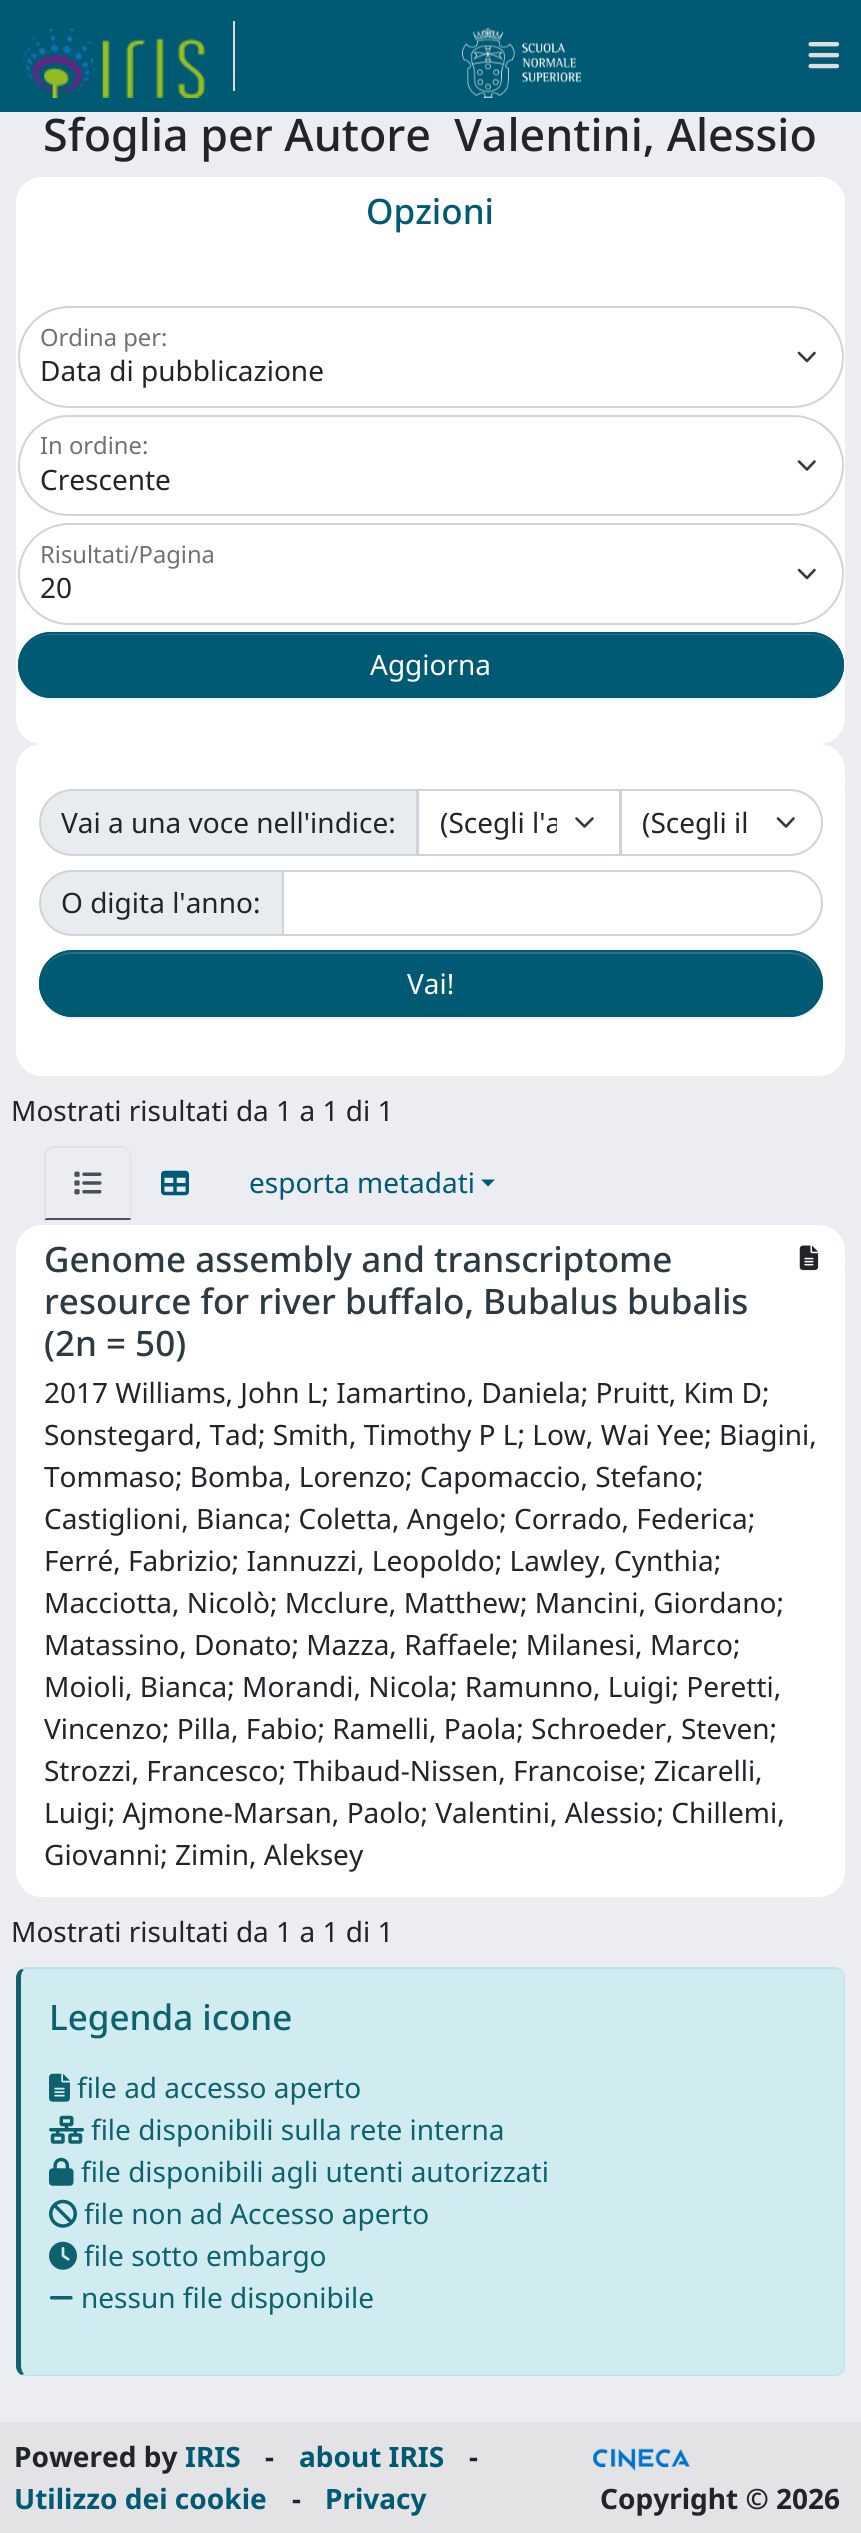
#include <cairo.h>
#include <math.h>
#include <stddef.h>

static cairo_t *ctx;

static void use_color(int r, int g, int b) {
    cairo_set_source_rgb(ctx, r / 255.0, g / 255.0, b / 255.0);
}

static void round_rect(double x, double y, double w, double h, double r) {
    cairo_new_sub_path(ctx);
    cairo_arc(ctx, x + w - r, y + h - r, r, 0, M_PI / 2);
    cairo_arc(ctx, x + r, y + h - r, r, M_PI / 2, M_PI);
    cairo_arc(ctx, x + r, y + r, r, M_PI, 1.5 * M_PI);
    cairo_arc(ctx, x + w - r, y + r, r, 1.5 * M_PI, 2 * M_PI);
    cairo_close_path(ctx);
}

static void shadow(double x, double y, double w, double h, double r, double blur, double alpha) {
    cairo_push_group_with_content(ctx, CAIRO_CONTENT_ALPHA);
    cairo_set_operator(ctx, CAIRO_OPERATOR_SOURCE);
    for (int i = 15; i >= -15 && fmin(w, h) + blur * i / 3 > 0; i -= 2) {
        double e = blur * i / 6;
        cairo_set_source_rgba(ctx, 0, 0, 0, alpha * erfc((i - 1) / 8.5) / 2);
        round_rect(x - e, y - e, w + 2 * e, h + 2 * e, fmax(0, fmin(r + e + blur * .6, fmin(w, h) / 2 + e)));
        cairo_fill(ctx);
    }
    cairo_pattern_t *soft = cairo_pop_group(ctx);
    cairo_mask(ctx, soft);
    cairo_pattern_destroy(soft);
}

static void picture(const char *path, double x, double y, double w, double h) {
    cairo_surface_t *image = cairo_image_surface_create_from_png(path);
    cairo_save(ctx);
    cairo_set_source_surface(ctx, image, x, y);
    cairo_rectangle(ctx, x, y, w, h);
    cairo_fill(ctx);
    cairo_restore(ctx);
    cairo_surface_destroy(image);
}

int main(void) {
    cairo_surface_t *surface = cairo_image_surface_create(CAIRO_FORMAT_RGB24, 861, 2533);
    ctx = cairo_create(surface);
    cairo_font_options_t *options = cairo_font_options_create();
    cairo_font_options_set_hint_metrics(options, CAIRO_HINT_METRICS_OFF);
    cairo_font_options_set_hint_style(options, CAIRO_HINT_STYLE_NONE);
    cairo_set_font_options(ctx, options);
    cairo_set_miter_limit(ctx, 4);
    use_color(236, 237, 242);
    cairo_paint(ctx);
    use_color(0, 90, 116);
    cairo_rectangle(ctx, 0, 0, 861, 112);
    cairo_fill(ctx);
    use_color(221, 221, 221);
    cairo_rectangle(ctx, 233, 21, 2, 70);
    cairo_fill(ctx);
    picture("img1.png", 21, 28, 184, 70);
    picture("img2.png", 462, 28, 119, 70);
    picture("img3.png", 808, 42, 32, 27);
    cairo_select_font_face(ctx, "Noto Sans Medium", CAIRO_FONT_SLANT_NORMAL, CAIRO_FONT_WEIGHT_NORMAL);
    cairo_set_font_size(ctx, 44.8);
    use_color(33, 37, 41);
    cairo_move_to(ctx, 43, 151);
    cairo_show_text(ctx, "Sfoglia per Autore  Valentini, Alessio");
    use_color(255, 255, 255);
    round_rect(16, 177, 829, 567, 26);
    cairo_fill(ctx);
    cairo_new_path(ctx);
    cairo_move_to(ctx, 42, 177);
    cairo_line_to(ctx, 819, 177);
    cairo_curve_to(ctx, 833.5, 177, 845, 188.5, 845, 203);
    cairo_line_to(ctx, 845, 261);
    cairo_line_to(ctx, 16, 261);
    cairo_line_to(ctx, 16, 203);
    cairo_curve_to(ctx, 16, 188.5, 27.5, 177, 42, 177);
    cairo_close_path(ctx);
    cairo_fill(ctx);
    cairo_set_font_size(ctx, 35);
    use_color(0, 90, 116);
    cairo_move_to(ctx, 366, 224);
    cairo_show_text(ctx, "Opzioni");
    cairo_new_path(ctx);
    cairo_move_to(ctx, 799, 353);
    cairo_line_to(ctx, 807, 361);
    cairo_line_to(ctx, 814.5, 353);
    use_color(52, 58, 64);
    cairo_set_line_width(ctx, 2.6);
    cairo_set_line_cap(ctx, CAIRO_LINE_CAP_ROUND);
    cairo_set_line_join(ctx, CAIRO_LINE_JOIN_ROUND);
    cairo_stroke(ctx);
    round_rect(19, 307, 824, 100, 50);
    use_color(206, 212, 218);
    cairo_set_line_width(ctx, 2);
    cairo_set_line_cap(ctx, CAIRO_LINE_CAP_BUTT);
    cairo_set_line_join(ctx, CAIRO_LINE_JOIN_MITER);
    cairo_stroke(ctx);
    cairo_select_font_face(ctx, "Noto Sans", CAIRO_FONT_SLANT_NORMAL, CAIRO_FONT_WEIGHT_NORMAL);
    cairo_set_font_size(ctx, 23.75);
    use_color(111, 113, 116);
    cairo_move_to(ctx, 40, 346);
    cairo_show_text(ctx, "Ordina per:");
    cairo_set_font_size(ctx, 28);
    use_color(33, 37, 41);
    cairo_move_to(ctx, 40, 381);
    cairo_show_text(ctx, "Data di pubblicazione");
    cairo_new_path(ctx);
    cairo_move_to(ctx, 799, 461.5);
    cairo_line_to(ctx, 807, 469.5);
    cairo_line_to(ctx, 814.5, 461.5);
    use_color(52, 58, 64);
    cairo_set_line_width(ctx, 2.6);
    cairo_set_line_cap(ctx, CAIRO_LINE_CAP_ROUND);
    cairo_set_line_join(ctx, CAIRO_LINE_JOIN_ROUND);
    cairo_stroke(ctx);
    round_rect(19, 416, 824, 99, 49.5);
    use_color(206, 212, 218);
    cairo_set_line_width(ctx, 2);
    cairo_set_line_cap(ctx, CAIRO_LINE_CAP_BUTT);
    cairo_set_line_join(ctx, CAIRO_LINE_JOIN_MITER);
    cairo_stroke(ctx);
    cairo_set_font_size(ctx, 23.75);
    use_color(111, 113, 116);
    cairo_move_to(ctx, 40, 454);
    cairo_show_text(ctx, "In ordine:");
    cairo_set_font_size(ctx, 28);
    use_color(33, 37, 41);
    cairo_move_to(ctx, 40, 490);
    cairo_show_text(ctx, "Crescente");
    cairo_new_path(ctx);
    cairo_move_to(ctx, 799, 570);
    cairo_line_to(ctx, 807, 578);
    cairo_line_to(ctx, 814.5, 570);
    use_color(52, 58, 64);
    cairo_set_line_width(ctx, 2.6);
    cairo_set_line_cap(ctx, CAIRO_LINE_CAP_ROUND);
    cairo_set_line_join(ctx, CAIRO_LINE_JOIN_ROUND);
    cairo_stroke(ctx);
    round_rect(19, 524, 824, 100, 50);
    use_color(206, 212, 218);
    cairo_set_line_width(ctx, 2);
    cairo_set_line_cap(ctx, CAIRO_LINE_CAP_BUTT);
    cairo_set_line_join(ctx, CAIRO_LINE_JOIN_MITER);
    cairo_stroke(ctx);
    cairo_set_font_size(ctx, 23.75);
    use_color(111, 113, 116);
    cairo_move_to(ctx, 40, 563);
    cairo_show_text(ctx, "Risultati/Pagina");
    cairo_set_font_size(ctx, 28);
    use_color(33, 37, 41);
    cairo_move_to(ctx, 40, 598);
    cairo_show_text(ctx, "20");
    use_color(0, 0, 0);
    shadow(18, 634, 826, 66, 33, 1, 0.07);
    use_color(0, 90, 116);
    round_rect(18, 632, 826, 66, 33);
    cairo_fill(ctx);
    use_color(38, 115, 137);
    cairo_new_path(ctx);
    cairo_move_to(ctx, 51, 635);
    cairo_line_to(ctx, 810, 635);
    cairo_curve_to(ctx, 828, 635, 842, 649, 842, 666);
    cairo_curve_to(ctx, 842, 648, 828, 634, 810, 634);
    cairo_line_to(ctx, 50, 634);
    cairo_curve_to(ctx, 33, 634, 19, 648, 19, 666);
    cairo_curve_to(ctx, 19, 649, 33, 635, 51, 635);
    cairo_close_path(ctx);
    cairo_fill(ctx);
    round_rect(19, 633, 824, 64, 32);
    use_color(0, 90, 116);
    cairo_stroke(ctx);
    use_color(255, 255, 255);
    cairo_move_to(ctx, 370, 675);
    cairo_show_text(ctx, "Aggiorna");
    use_color(238, 238, 238);
    shadow(21, 767, 819, 322, 21, 13, 1);
    use_color(255, 255, 255);
    round_rect(16, 744, 829, 332, 26);
    cairo_fill(ctx);
    use_color(233, 236, 239);
    cairo_new_path(ctx);
    cairo_move_to(ctx, 72.5, 790);
    cairo_line_to(ctx, 417, 790);
    cairo_line_to(ctx, 417, 855);
    cairo_line_to(ctx, 72.5, 855);
    cairo_curve_to(ctx, 54.5, 855, 40, 840.5, 40, 822.5);
    cairo_curve_to(ctx, 40, 804.5, 54.5, 790, 72.5, 790);
    cairo_close_path(ctx);
    cairo_fill_preserve(ctx);
    use_color(206, 212, 218);
    cairo_stroke(ctx);
    use_color(33, 37, 41);
    cairo_move_to(ctx, 61, 833);
    cairo_show_text(ctx, "Vai a una voce nell'indice:");
    cairo_new_path(ctx);
    cairo_move_to(ctx, 576.5, 818.5);
    cairo_line_to(ctx, 584.5, 826.5);
    cairo_line_to(ctx, 592.5, 818.5);
    use_color(52, 58, 64);
    cairo_set_line_width(ctx, 2.6);
    cairo_set_line_cap(ctx, CAIRO_LINE_CAP_ROUND);
    cairo_set_line_join(ctx, CAIRO_LINE_JOIN_ROUND);
    cairo_stroke(ctx);
    cairo_rectangle(ctx, 418, 790, 202, 65);
    use_color(206, 212, 218);
    cairo_set_line_width(ctx, 2);
    cairo_set_line_cap(ctx, CAIRO_LINE_CAP_BUTT);
    cairo_set_line_join(ctx, CAIRO_LINE_JOIN_MITER);
    cairo_stroke(ctx);
    cairo_save(ctx);
    cairo_rectangle(ctx, 439, 802, 118, 42);
    cairo_clip(ctx);
    use_color(33, 37, 41);
    cairo_move_to(ctx, 440, 833);
    cairo_show_text(ctx, "(Scegli l'a");
    cairo_restore(ctx);
    use_color(255, 255, 255);
    cairo_new_path(ctx);
    cairo_move_to(ctx, 620, 789);
    cairo_line_to(ctx, 789.5, 789);
    cairo_curve_to(ctx, 808, 789, 823, 804, 823, 822.5);
    cairo_curve_to(ctx, 823, 841, 808, 856, 789.5, 856);
    cairo_line_to(ctx, 620, 856);
    cairo_close_path(ctx);
    cairo_fill(ctx);
    cairo_new_path(ctx);
    cairo_move_to(ctx, 778, 818.5);
    cairo_line_to(ctx, 786, 826.5);
    cairo_line_to(ctx, 793.5, 818.5);
    use_color(52, 58, 64);
    cairo_set_line_width(ctx, 2.6);
    cairo_set_line_cap(ctx, CAIRO_LINE_CAP_ROUND);
    cairo_set_line_join(ctx, CAIRO_LINE_JOIN_ROUND);
    cairo_stroke(ctx);
    cairo_new_path(ctx);
    cairo_move_to(ctx, 621, 790);
    cairo_line_to(ctx, 789.5, 790);
    cairo_curve_to(ctx, 807.5, 790, 822, 804.5, 822, 822.5);
    cairo_curve_to(ctx, 822, 840.5, 807.5, 855, 789.5, 855);
    cairo_line_to(ctx, 621, 855);
    cairo_close_path(ctx);
    use_color(206, 212, 218);
    cairo_set_line_width(ctx, 2);
    cairo_set_line_cap(ctx, CAIRO_LINE_CAP_BUTT);
    cairo_set_line_join(ctx, CAIRO_LINE_JOIN_MITER);
    cairo_stroke(ctx);
    use_color(33, 37, 41);
    cairo_move_to(ctx, 642, 833);
    cairo_show_text(ctx, "(Scegli il");
    use_color(233, 236, 239);
    cairo_new_path(ctx);
    cairo_move_to(ctx, 72, 871);
    cairo_line_to(ctx, 283, 871);
    cairo_line_to(ctx, 283, 935);
    cairo_line_to(ctx, 72, 935);
    cairo_curve_to(ctx, 54.5, 935, 40, 920.5, 40, 903);
    cairo_curve_to(ctx, 40, 885.5, 54.5, 871, 72, 871);
    cairo_close_path(ctx);
    cairo_fill_preserve(ctx);
    use_color(206, 212, 218);
    cairo_stroke(ctx);
    use_color(33, 37, 41);
    cairo_move_to(ctx, 61, 913);
    cairo_show_text(ctx, "O digita l'anno:");
    cairo_new_path(ctx);
    cairo_move_to(ctx, 283, 871);
    cairo_line_to(ctx, 790, 871);
    cairo_curve_to(ctx, 807.5, 871, 822, 885.5, 822, 903);
    cairo_curve_to(ctx, 822, 920.5, 807.5, 935, 790, 935);
    cairo_line_to(ctx, 283, 935);
    cairo_close_path(ctx);
    use_color(206, 212, 218);
    cairo_stroke(ctx);
    use_color(0, 0, 0);
    shadow(39, 952, 784, 67, 33.5, 1, 0.07);
    use_color(0, 90, 116);
    round_rect(39, 950, 784, 67, 33.5);
    cairo_fill(ctx);
    use_color(38, 115, 137);
    cairo_new_path(ctx);
    cairo_move_to(ctx, 72, 954);
    cairo_line_to(ctx, 789, 954);
    cairo_curve_to(ctx, 807, 954, 821, 968, 821, 984);
    cairo_curve_to(ctx, 821, 967, 807, 952, 790, 952);
    cairo_line_to(ctx, 72, 952);
    cairo_curve_to(ctx, 54, 952, 40, 967, 40, 984);
    cairo_curve_to(ctx, 40, 968, 54, 954, 72, 954);
    cairo_close_path(ctx);
    cairo_fill(ctx);
    round_rect(40, 951, 782, 65, 32.5);
    use_color(0, 90, 116);
    cairo_stroke(ctx);
    use_color(255, 255, 255);
    cairo_move_to(ctx, 407, 994);
    cairo_show_text(ctx, "Vai!");
    use_color(33, 37, 41);
    cairo_move_to(ctx, 11, 1121);
    cairo_show_text(ctx, "Mostrati risultati da 1 a 1 di 1");
    use_color(222, 226, 230);
    cairo_new_path(ctx);
    cairo_move_to(ctx, 54, 1148);
    cairo_curve_to(ctx, 52, 1148, 50, 1149, 48, 1151);
    cairo_line_to(ctx, 47, 1149);
    cairo_curve_to(ctx, 48, 1148, 50, 1147, 52, 1146);
    cairo_line_to(ctx, 123, 1146);
    cairo_curve_to(ctx, 125, 1147, 127, 1148, 128, 1149);
    cairo_line_to(ctx, 127, 1150);
    cairo_curve_to(ctx, 126, 1149, 123, 1148, 121, 1148);
    cairo_close_path(ctx);
    cairo_fill(ctx);
    cairo_new_path(ctx);
    cairo_move_to(ctx, 128, 1149);
    cairo_curve_to(ctx, 130, 1151, 131, 1154, 131, 1157);
    cairo_line_to(ctx, 131, 1220);
    cairo_line_to(ctx, 130, 1218);
    cairo_line_to(ctx, 130, 1157);
    cairo_curve_to(ctx, 130, 1154, 129, 1152, 127, 1150);
    cairo_close_path(ctx);
    cairo_fill(ctx);
    use_color(73, 80, 87);
    cairo_new_path(ctx);
    cairo_move_to(ctx, 44, 1220);
    cairo_line_to(ctx, 46, 1218);
    cairo_line_to(ctx, 130, 1218);
    cairo_line_to(ctx, 131, 1220);
    cairo_close_path(ctx);
    cairo_fill(ctx);
    use_color(222, 226, 230);
    cairo_new_path(ctx);
    cairo_move_to(ctx, 44, 1220);
    cairo_line_to(ctx, 44, 1157);
    cairo_curve_to(ctx, 44, 1154, 45, 1151, 47, 1149);
    cairo_line_to(ctx, 48, 1151);
    cairo_curve_to(ctx, 47, 1152, 46, 1154, 46, 1157);
    cairo_line_to(ctx, 46, 1218);
    cairo_close_path(ctx);
    cairo_fill(ctx);
    picture("img4.png", 74, 1171, 28, 24);
    picture("img5.png", 161, 1170, 28, 26);
    use_color(0, 90, 116);
    cairo_move_to(ctx, 249, 1193);
    cairo_show_text(ctx, "esporta metadati");
    cairo_new_path(ctx);
    cairo_move_to(ctx, 481, 1179.5);
    cairo_line_to(ctx, 495, 1179.5);
    cairo_line_to(ctx, 488, 1186.5);
    cairo_close_path(ctx);
    cairo_fill(ctx);
    use_color(238, 238, 238);
    shadow(21, 1248, 819, 661, 21, 13, 1);
    use_color(255, 255, 255);
    round_rect(16, 1225, 829, 672, 26);
    cairo_fill(ctx);
    cairo_select_font_face(ctx, "Noto Sans Medium", CAIRO_FONT_SLANT_NORMAL, CAIRO_FONT_WEIGHT_NORMAL);
    cairo_set_font_size(ctx, 35);
    use_color(45, 58, 66);
    cairo_move_to(ctx, 44, 1272);
    cairo_show_text(ctx, "Genome assembly and transcriptome");
    cairo_move_to(ctx, 44, 1314);
    cairo_show_text(ctx, "resource for river buffalo, Bubalus bubalis");
    cairo_move_to(ctx, 44, 1356);
    cairo_show_text(ctx, "(2n = 50)");
    picture("img6.png", 799, 1245, 20, 26);
    cairo_select_font_face(ctx, "Noto Sans", CAIRO_FONT_SLANT_NORMAL, CAIRO_FONT_WEIGHT_NORMAL);
    cairo_set_font_size(ctx, 28);
    use_color(33, 37, 41);
    cairo_move_to(ctx, 44, 1403);
    cairo_show_text(ctx, "2017 Williams, John L; Iamartino, Daniela; Pruitt, Kim D;");
    cairo_move_to(ctx, 44, 1445);
    cairo_show_text(ctx, "Sonstegard, Tad; Smith, Timothy P L; Low, Wai Yee; Biagini,");
    cairo_move_to(ctx, 44, 1487);
    cairo_show_text(ctx, "Tommaso; Bomba, Lorenzo; Capomaccio, Stefano;");
    cairo_move_to(ctx, 44, 1529);
    cairo_show_text(ctx, "Castiglioni, Bianca; Coletta, Angelo; Corrado, Federica;");
    cairo_move_to(ctx, 44, 1571);
    cairo_show_text(ctx, "Ferré, Fabrizio; Iannuzzi, Leopoldo; Lawley, Cynthia;");
    cairo_move_to(ctx, 44, 1613);
    cairo_show_text(ctx, "Macciotta, Nicolò; Mcclure, Matthew; Mancini, Giordano;");
    cairo_move_to(ctx, 44, 1655);
    cairo_show_text(ctx, "Matassino, Donato; Mazza, Raffaele; Milanesi, Marco;");
    cairo_move_to(ctx, 44, 1697);
    cairo_show_text(ctx, "Moioli, Bianca; Morandi, Nicola; Ramunno, Luigi; Peretti,");
    cairo_move_to(ctx, 44, 1739);
    cairo_show_text(ctx, "Vincenzo; Pilla, Fabio; Ramelli, Paola; Schroeder, Steven;");
    cairo_move_to(ctx, 44, 1781);
    cairo_show_text(ctx, "Strozzi, Francesco; Thibaud-Nissen, Francoise; Zicarelli,");
    cairo_move_to(ctx, 44, 1823);
    cairo_show_text(ctx, "Luigi; Ajmone-Marsan, Paolo; Valentini, Alessio; Chillemi,");
    cairo_move_to(ctx, 44, 1865);
    cairo_show_text(ctx, "Giovanni; Zimin, Aleksey");
    cairo_move_to(ctx, 11, 1942);
    cairo_show_text(ctx, "Mostrati risultati da 1 a 1 di 1");
    use_color(209, 236, 241);
    cairo_new_path(ctx);
    cairo_move_to(ctx, 26, 1969);
    cairo_line_to(ctx, 835, 1969);
    cairo_curve_to(ctx, 840, 1969, 844, 1973, 844, 1978);
    cairo_line_to(ctx, 844, 2366);
    cairo_curve_to(ctx, 844, 2371, 840, 2375, 835, 2375);
    cairo_line_to(ctx, 26, 2375);
    cairo_curve_to(ctx, 23, 2375, 21, 2371, 21, 2366);
    cairo_line_to(ctx, 21, 1978);
    cairo_curve_to(ctx, 21, 1973, 23, 1969, 26, 1969);
    cairo_close_path(ctx);
    cairo_fill(ctx);
    use_color(185, 227, 234);
    cairo_new_path(ctx);
    cairo_move_to(ctx, 26, 1967);
    cairo_curve_to(ctx, 24, 1967, 22, 1968, 21, 1969);
    cairo_line_to(ctx, 24, 1970);
    cairo_line_to(ctx, 26, 1969);
    cairo_line_to(ctx, 835, 1969);
    cairo_curve_to(ctx, 837, 1969, 839, 1970, 841, 1971);
    cairo_line_to(ctx, 842, 1970);
    cairo_curve_to(ctx, 840, 1968, 838, 1967, 835, 1967);
    cairo_close_path(ctx);
    cairo_fill(ctx);
    cairo_new_path(ctx);
    cairo_move_to(ctx, 842, 1970);
    cairo_curve_to(ctx, 844, 1972, 845, 1975, 845, 1978);
    cairo_line_to(ctx, 845, 2366);
    cairo_curve_to(ctx, 845, 2369, 844, 2372, 842, 2373);
    cairo_line_to(ctx, 841, 2372);
    cairo_curve_to(ctx, 843, 2371, 844, 2369, 844, 2366);
    cairo_line_to(ctx, 844, 1978);
    cairo_curve_to(ctx, 844, 1975, 843, 1973, 841, 1971);
    cairo_close_path(ctx);
    cairo_fill(ctx);
    cairo_new_path(ctx);
    cairo_move_to(ctx, 842, 2373);
    cairo_curve_to(ctx, 840, 2375, 838, 2376, 835, 2376);
    cairo_line_to(ctx, 26, 2376);
    cairo_curve_to(ctx, 24, 2376, 22, 2376, 21, 2375);
    cairo_line_to(ctx, 24, 2374);
    cairo_curve_to(ctx, 24, 2375, 25, 2375, 26, 2375);
    cairo_line_to(ctx, 835, 2375);
    cairo_curve_to(ctx, 837, 2375, 840, 2374, 841, 2372);
    cairo_close_path(ctx);
    cairo_fill(ctx);
    use_color(14, 97, 110);
    cairo_new_path(ctx);
    cairo_move_to(ctx, 21, 1969);
    cairo_curve_to(ctx, 18, 1971, 16, 1974, 16, 1978);
    cairo_line_to(ctx, 16, 2366);
    cairo_curve_to(ctx, 16, 2370, 18, 2373, 21, 2375);
    cairo_line_to(ctx, 24, 2374);
    cairo_curve_to(ctx, 22, 2372, 21, 2369, 21, 2366);
    cairo_line_to(ctx, 21, 1978);
    cairo_curve_to(ctx, 21, 1974, 22, 1971, 24, 1970);
    cairo_close_path(ctx);
    cairo_fill(ctx);
    cairo_select_font_face(ctx, "Noto Sans Medium", CAIRO_FONT_SLANT_NORMAL, CAIRO_FONT_WEIGHT_NORMAL);
    cairo_set_font_size(ctx, 35);
    cairo_move_to(ctx, 49, 2030);
    cairo_show_text(ctx, "Legenda icone");
    picture("img7.png", 49, 2073, 21, 29);
    cairo_select_font_face(ctx, "Noto Sans", CAIRO_FONT_SLANT_NORMAL, CAIRO_FONT_WEIGHT_NORMAL);
    cairo_set_font_size(ctx, 28);
    cairo_move_to(ctx, 77, 2098);
    cairo_show_text(ctx, "file ad accesso aperto");
    picture("img8.png", 49, 2115, 35, 29);
    cairo_move_to(ctx, 91, 2140);
    cairo_show_text(ctx, "file disponibili sulla rete interna");
    picture("img9.png", 49, 2157, 25, 29);
    cairo_move_to(ctx, 81, 2182);
    cairo_show_text(ctx, "file disponibili agli utenti autorizzati");
    picture("img10.png", 49, 2199, 28, 29);
    cairo_move_to(ctx, 84, 2224);
    cairo_show_text(ctx, "file non ad Accesso aperto");
    picture("img11.png", 49, 2241, 28, 29);
    cairo_move_to(ctx, 84, 2266);
    cairo_show_text(ctx, "file sotto embargo");
    picture("img12.png", 49, 2296, 24, 4);
    cairo_move_to(ctx, 81, 2308);
    cairo_show_text(ctx, "nessun file disponibile");
    use_color(227, 227, 229);
    cairo_rectangle(ctx, 0, 2422, 861, 111);
    cairo_fill(ctx);
    cairo_select_font_face(ctx, "Noto Sans", CAIRO_FONT_SLANT_NORMAL, CAIRO_FONT_WEIGHT_BOLD);
    use_color(33, 37, 41);
    cairo_move_to(ctx, 14, 2467);
    cairo_show_text(ctx, "Powered by");
    use_color(0, 90, 116);
    cairo_move_to(ctx, 185, 2467);
    cairo_show_text(ctx, "IRIS");
    use_color(33, 37, 41);
    cairo_move_to(ctx, 265, 2467);
    cairo_show_text(ctx, "-");
    use_color(0, 90, 116);
    cairo_move_to(ctx, 299, 2467);
    cairo_show_text(ctx, "about IRIS");
    use_color(33, 37, 41);
    cairo_move_to(ctx, 469, 2467);
    cairo_show_text(ctx, "-");
    use_color(0, 90, 116);
    cairo_move_to(ctx, 14, 2509);
    cairo_show_text(ctx, "Utilizzo dei cookie");
    use_color(33, 37, 41);
    cairo_move_to(ctx, 292, 2509);
    cairo_show_text(ctx, "-");
    use_color(0, 90, 116);
    cairo_move_to(ctx, 325, 2509);
    cairo_show_text(ctx, "Privacy");
    picture("img13.png", 593, 2448, 97, 23);
    use_color(33, 37, 41);
    cairo_move_to(ctx, 600, 2509);
    cairo_show_text(ctx, "Copyright © 2026");
    cairo_surface_write_to_png(surface, "result.png");
    cairo_font_options_destroy(options);
    cairo_destroy(ctx);
    cairo_surface_destroy(surface);
    return 0;
}
